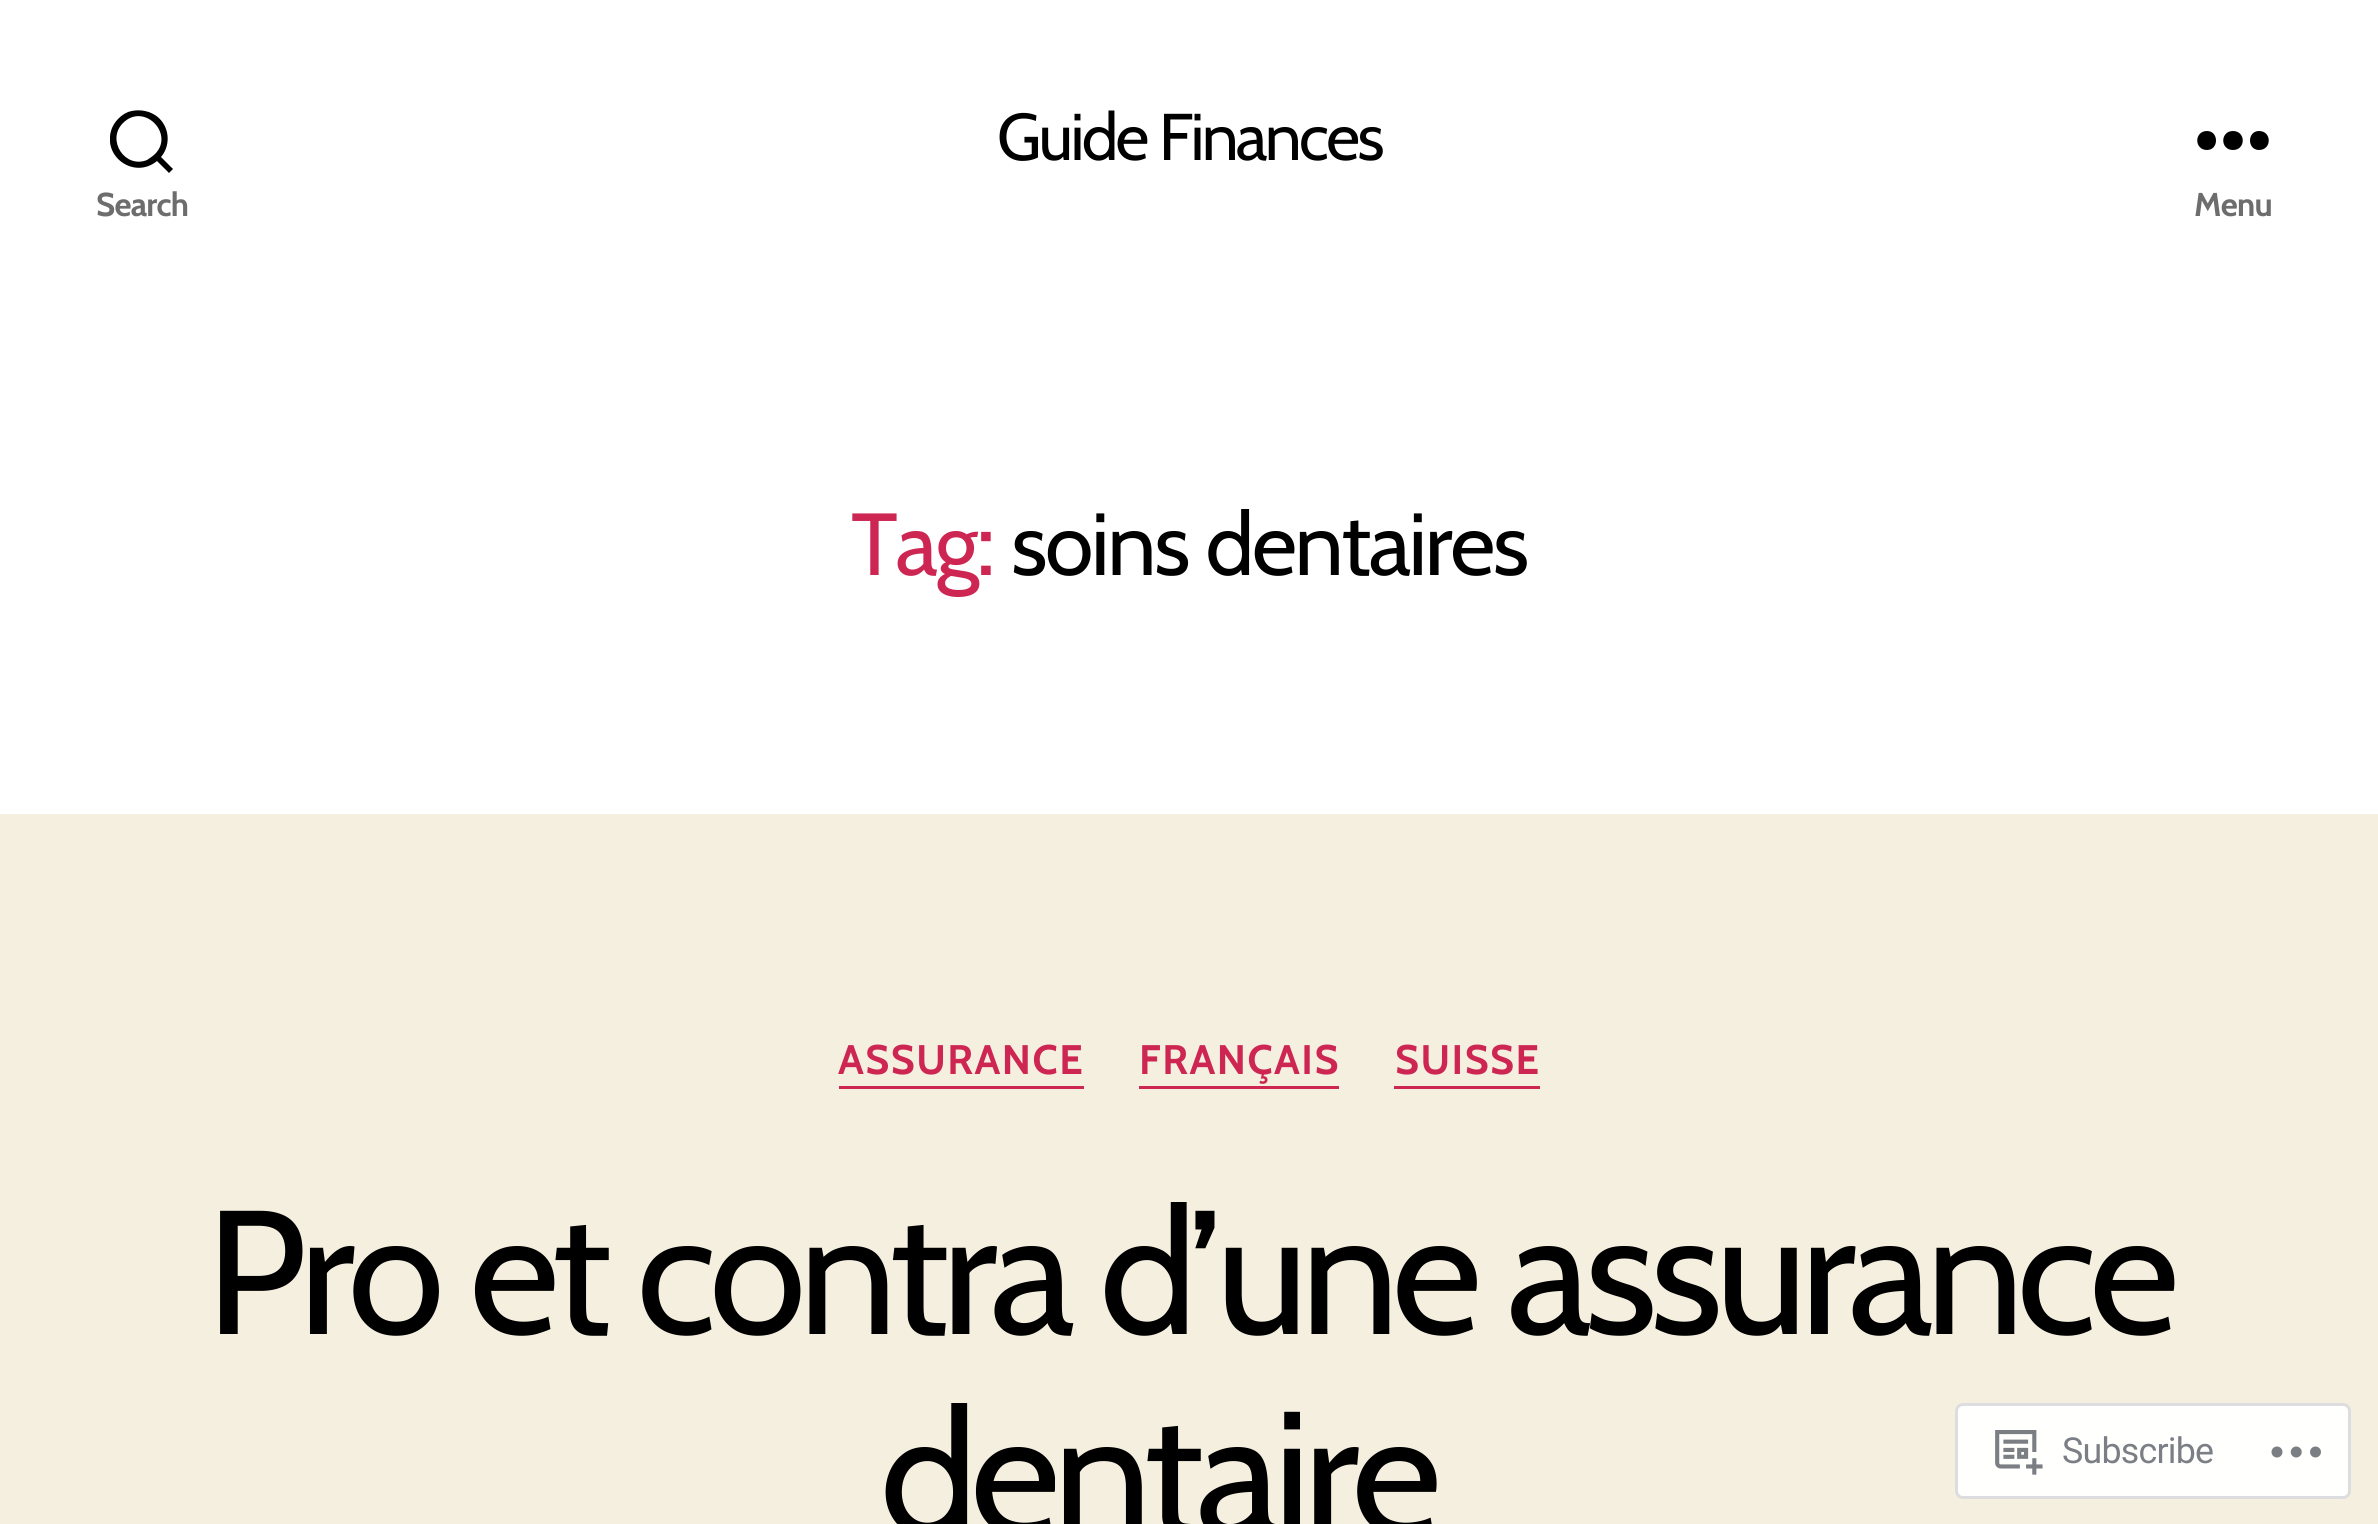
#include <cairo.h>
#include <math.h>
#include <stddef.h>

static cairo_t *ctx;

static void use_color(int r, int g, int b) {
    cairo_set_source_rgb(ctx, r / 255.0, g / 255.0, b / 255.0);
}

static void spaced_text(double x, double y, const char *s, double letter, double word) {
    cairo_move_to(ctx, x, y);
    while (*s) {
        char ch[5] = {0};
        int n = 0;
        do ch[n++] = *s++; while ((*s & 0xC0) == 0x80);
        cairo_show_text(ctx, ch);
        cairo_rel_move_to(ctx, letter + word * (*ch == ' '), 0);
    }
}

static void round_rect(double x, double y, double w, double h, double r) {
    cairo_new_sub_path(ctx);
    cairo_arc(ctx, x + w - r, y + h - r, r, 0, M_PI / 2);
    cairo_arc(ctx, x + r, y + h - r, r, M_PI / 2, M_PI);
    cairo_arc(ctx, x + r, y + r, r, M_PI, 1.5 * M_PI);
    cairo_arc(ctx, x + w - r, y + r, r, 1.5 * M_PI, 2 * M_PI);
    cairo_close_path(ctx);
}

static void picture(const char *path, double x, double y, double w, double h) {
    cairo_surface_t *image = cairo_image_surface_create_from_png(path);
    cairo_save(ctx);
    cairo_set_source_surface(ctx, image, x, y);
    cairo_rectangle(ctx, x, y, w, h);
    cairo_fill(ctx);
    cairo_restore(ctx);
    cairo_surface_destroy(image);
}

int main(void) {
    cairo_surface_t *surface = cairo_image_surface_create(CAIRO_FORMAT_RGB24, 2378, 1524);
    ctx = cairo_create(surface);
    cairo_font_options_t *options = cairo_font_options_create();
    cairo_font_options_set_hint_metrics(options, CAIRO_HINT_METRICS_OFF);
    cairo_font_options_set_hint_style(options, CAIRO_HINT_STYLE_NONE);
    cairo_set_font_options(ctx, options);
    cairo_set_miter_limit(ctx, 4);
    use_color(245, 239, 224);
    cairo_paint(ctx);
    use_color(255, 255, 255);
    cairo_rectangle(ctx, 0, 0, 2378, 814);
    cairo_fill(ctx);
    cairo_select_font_face(ctx, "Cabin", CAIRO_FONT_SLANT_NORMAL, CAIRO_FONT_WEIGHT_NORMAL);
    cairo_set_font_size(ctx, 66);
    use_color(0, 0, 0);
    spaced_text(997, 160, "Guide Finances", -2.75, 0);
    cairo_save(ctx);
    cairo_rectangle(ctx, 110, 107, 63, 69);
    cairo_clip(ctx);
    cairo_new_path(ctx);
    cairo_move_to(ctx, 161, 157);
    cairo_line_to(ctx, 173, 169);
    cairo_line_to(ctx, 169, 173);
    cairo_line_to(ctx, 157, 161);
    cairo_curve_to(ctx, 134, 180, 101, 156, 112, 128);
    cairo_curve_to(ctx, 115, 121, 121, 115, 128, 112);
    cairo_curve_to(ctx, 137, 109, 147, 110, 155, 115);
    cairo_curve_to(ctx, 169, 124, 172, 144, 161, 157);
    cairo_close_path(ctx);
    cairo_move_to(ctx, 155, 154);
    cairo_curve_to(ctx, 175, 134, 144, 102, 123, 123);
    cairo_curve_to(ctx, 106, 140, 125, 169, 147, 160);
    cairo_curve_to(ctx, 150, 158, 153, 156, 155, 154);
    cairo_close_path(ctx);
    cairo_fill(ctx);
    cairo_restore(ctx);
    cairo_select_font_face(ctx, "Cabin", CAIRO_FONT_SLANT_NORMAL, CAIRO_FONT_WEIGHT_BOLD);
    cairo_set_font_size(ctx, 33);
    use_color(109, 109, 109);
    spaced_text(96, 216, "Search", -0.75, 0);
    use_color(0, 0, 0);
    cairo_set_fill_rule(ctx, CAIRO_FILL_RULE_EVEN_ODD);
    cairo_new_path(ctx);
    cairo_move_to(ctx, 2207, 150);
    cairo_curve_to(ctx, 2194, 150, 2194, 131, 2207, 131);
    cairo_curve_to(ctx, 2219, 131, 2219, 150, 2207, 150);
    cairo_close_path(ctx);
    cairo_move_to(ctx, 2233, 150);
    cairo_curve_to(ctx, 2220, 150, 2220, 131, 2233, 131);
    cairo_curve_to(ctx, 2246, 131, 2246, 150, 2233, 150);
    cairo_close_path(ctx);
    cairo_move_to(ctx, 2259, 150);
    cairo_curve_to(ctx, 2247, 150, 2247, 131, 2259, 131);
    cairo_curve_to(ctx, 2272, 131, 2272, 150, 2259, 150);
    cairo_close_path(ctx);
    cairo_fill(ctx);
    use_color(109, 109, 109);
    spaced_text(2194, 216, "Menu", -0.75, 0);
    cairo_select_font_face(ctx, "Cabin", CAIRO_FONT_SLANT_NORMAL, CAIRO_FONT_WEIGHT_NORMAL);
    cairo_set_font_size(ctx, 88);
    use_color(205, 38, 83);
    spaced_text(851, 575, "Tag:", -2.4, 0);
    use_color(0, 0, 0);
    spaced_text(1011, 575, "soins dentaires", -2.4, 0);
    use_color(205, 38, 83);
    cairo_rectangle(ctx, 839, 1086, 245, 3);
    cairo_fill(ctx);
    cairo_select_font_face(ctx, "Cabin", CAIRO_FONT_SLANT_NORMAL, CAIRO_FONT_WEIGHT_BOLD);
    cairo_set_font_size(ctx, 41.25);
    spaced_text(838, 1074, "ASSURANCE", 1.5, 0);
    cairo_rectangle(ctx, 1139, 1086, 200, 3);
    cairo_fill(ctx);
    spaced_text(1139, 1074, "FRANÇAIS", 1.5, 0);
    cairo_rectangle(ctx, 1394, 1086, 146, 3);
    cairo_fill(ctx);
    spaced_text(1395, 1074, "SUISSE", 1.5, 0);
    cairo_select_font_face(ctx, "Cabin", CAIRO_FONT_SLANT_NORMAL, CAIRO_FONT_WEIGHT_NORMAL);
    cairo_set_font_size(ctx, 176);
    use_color(0, 0, 0);
    spaced_text(206, 1334, "Pro et contra d’une assurance", -7.3, 0);
    spaced_text(880, 1535, "dentaire", -7.3, 0);
    use_color(255, 255, 254);
    round_rect(1956.5, 1404.5, 393, 93, 6.5);
    cairo_fill_preserve(ctx);
    use_color(221, 220, 222);
    cairo_set_line_width(ctx, 3);
    cairo_stroke(ctx);
    picture("img1.png", 1995, 1430, 48, 45);
    cairo_select_font_face(ctx, "Roboto", CAIRO_FONT_SLANT_NORMAL, CAIRO_FONT_WEIGHT_NORMAL);
    cairo_set_font_size(ctx, 35.75);
    use_color(123, 126, 132);
    spaced_text(2062, 1463, "Subscribe", -0.75, 0);
    picture("img2.png", 2271, 1446, 50, 12);
    cairo_surface_write_to_png(surface, "result.png");
    cairo_font_options_destroy(options);
    cairo_destroy(ctx);
    cairo_surface_destroy(surface);
    return 0;
}
